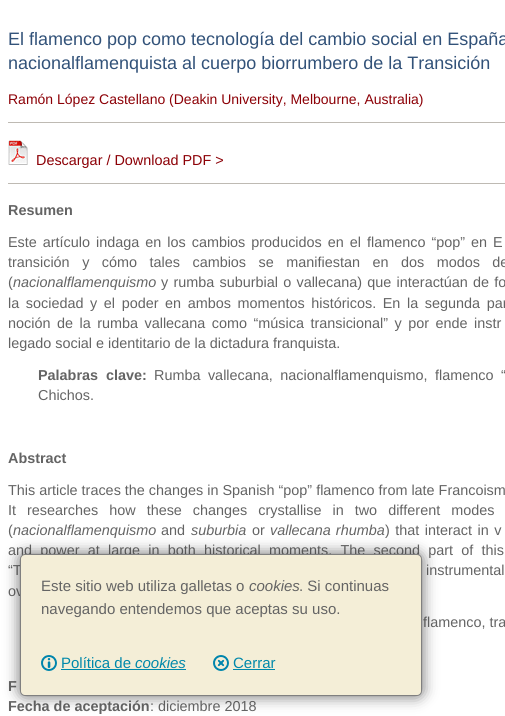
#include <cairo.h>
#include <math.h>
#include <stddef.h>

static cairo_t *ctx;

static void use_color(int r, int g, int b) {
    cairo_set_source_rgb(ctx, r / 255.0, g / 255.0, b / 255.0);
}

static void spaced_text(double x, double y, const char *s, double letter, double word) {
    cairo_move_to(ctx, x, y);
    while (*s) {
        char ch[5] = {0};
        int n = 0;
        do ch[n++] = *s++; while ((*s & 0xC0) == 0x80);
        cairo_show_text(ctx, ch);
        cairo_rel_move_to(ctx, letter + word * (*ch == ' '), 0);
    }
}

static void round_rect(double x, double y, double w, double h, double r) {
    cairo_new_sub_path(ctx);
    cairo_arc(ctx, x + w - r, y + h - r, r, 0, M_PI / 2);
    cairo_arc(ctx, x + r, y + h - r, r, M_PI / 2, M_PI);
    cairo_arc(ctx, x + r, y + r, r, M_PI, 1.5 * M_PI);
    cairo_arc(ctx, x + w - r, y + r, r, 1.5 * M_PI, 2 * M_PI);
    cairo_close_path(ctx);
}

static void shadow(double x, double y, double w, double h, double r, double blur, double alpha) {
    cairo_push_group_with_content(ctx, CAIRO_CONTENT_ALPHA);
    cairo_set_operator(ctx, CAIRO_OPERATOR_SOURCE);
    for (int i = 15; i >= -15 && fmin(w, h) + blur * i / 3 > 0; i -= 2) {
        double e = blur * i / 6;
        cairo_set_source_rgba(ctx, 0, 0, 0, alpha * erfc((i - 1) / 8.5) / 2);
        round_rect(x - e, y - e, w + 2 * e, h + 2 * e, fmax(0, fmin(r + e + blur * .6, fmin(w, h) / 2 + e)));
        cairo_fill(ctx);
    }
    cairo_pattern_t *soft = cairo_pop_group(ctx);
    cairo_mask(ctx, soft);
    cairo_pattern_destroy(soft);
}

static void picture(const char *path, double x, double y, double w, double h) {
    cairo_surface_t *image = cairo_image_surface_create_from_png(path);
    cairo_save(ctx);
    cairo_set_source_surface(ctx, image, x, y);
    cairo_rectangle(ctx, x, y, w, h);
    cairo_fill(ctx);
    cairo_restore(ctx);
    cairo_surface_destroy(image);
}

int main(void) {
    cairo_surface_t *surface = cairo_image_surface_create(CAIRO_FORMAT_RGB24, 505, 716);
    ctx = cairo_create(surface);
    cairo_font_options_t *options = cairo_font_options_create();
    cairo_font_options_set_hint_metrics(options, CAIRO_HINT_METRICS_OFF);
    cairo_font_options_set_hint_style(options, CAIRO_HINT_STYLE_NONE);
    cairo_set_font_options(ctx, options);
    cairo_set_miter_limit(ctx, 4);
    use_color(255, 255, 255);
    cairo_paint(ctx);
    cairo_select_font_face(ctx, "Liberation Sans", CAIRO_FONT_SLANT_NORMAL, CAIRO_FONT_WEIGHT_NORMAL);
    cairo_set_font_size(ctx, 18);
    use_color(50, 82, 121);
    cairo_move_to(ctx, 8, 45);
    cairo_show_text(ctx, "El flamenco pop como tecnología del cambio social en España");
    cairo_move_to(ctx, 8, 69);
    cairo_show_text(ctx, "nacionalflamenquista al cuerpo biorrumbero de la Transición");
    cairo_set_font_size(ctx, 14);
    use_color(140, 0, 6);
    cairo_move_to(ctx, 8, 104);
    cairo_show_text(ctx, "Ramón López Castellano (Deakin University, Melbourne, Australia)");
    use_color(190, 186, 179);
    cairo_rectangle(ctx, 8, 122, 497, 1);
    cairo_fill(ctx);
    picture("img1.png", 8, 140, 20, 25);
    cairo_set_font_size(ctx, 14.4);
    use_color(140, 0, 6);
    cairo_move_to(ctx, 36, 165);
    cairo_show_text(ctx, "Descargar / Download PDF >");
    use_color(190, 186, 179);
    cairo_rectangle(ctx, 8, 183, 497, 1);
    cairo_fill(ctx);
    cairo_select_font_face(ctx, "Liberation Sans", CAIRO_FONT_SLANT_NORMAL, CAIRO_FONT_WEIGHT_BOLD);
    use_color(100, 100, 100);
    cairo_move_to(ctx, 8, 215);
    cairo_show_text(ctx, "Resumen");
    cairo_select_font_face(ctx, "Liberation Sans", CAIRO_FONT_SLANT_NORMAL, CAIRO_FONT_WEIGHT_NORMAL);
    spaced_text(8, 247, "Este artículo indaga en los cambios producidos en el flamenco “pop” en E", 0, 2);
    spaced_text(8, 267, "transición y cómo tales cambios se manifiestan en dos modos de", 0, 8.5);
    cairo_move_to(ctx, 8, 287);
    cairo_show_text(ctx, "(");
    cairo_select_font_face(ctx, "Liberation Sans", CAIRO_FONT_SLANT_ITALIC, CAIRO_FONT_WEIGHT_NORMAL);
    cairo_move_to(ctx, 13, 287);
    cairo_show_text(ctx, "nacionalflamenquismo");
    cairo_select_font_face(ctx, "Liberation Sans", CAIRO_FONT_SLANT_NORMAL, CAIRO_FONT_WEIGHT_NORMAL);
    spaced_text(161, 287, "y rumba suburbial o vallecana) que interactúan de fo", 0, 1.25);
    spaced_text(8, 308, "la sociedad y el poder en ambos momentos históricos. En la segunda par", 0, 2.6);
    spaced_text(8, 328, "noción de la rumba vallecana como “música transicional” y por ende instr", 0, 2.5);
    cairo_move_to(ctx, 8, 348);
    cairo_show_text(ctx, "legado social e identitario de la dictadura franquista.");
    cairo_select_font_face(ctx, "Liberation Sans", CAIRO_FONT_SLANT_NORMAL, CAIRO_FONT_WEIGHT_BOLD);
    spaced_text(38, 380, "Palabras clave:", 0, 4);
    cairo_select_font_face(ctx, "Liberation Sans", CAIRO_FONT_SLANT_NORMAL, CAIRO_FONT_WEIGHT_NORMAL);
    spaced_text(154, 380, "Rumba vallecana, nacionalflamenquismo, flamenco “", 0, 3.5);
    cairo_move_to(ctx, 38, 400);
    cairo_show_text(ctx, "Chichos.");
    cairo_select_font_face(ctx, "Liberation Sans", CAIRO_FONT_SLANT_NORMAL, CAIRO_FONT_WEIGHT_BOLD);
    cairo_move_to(ctx, 8, 463);
    cairo_show_text(ctx, "Abstract");
    cairo_select_font_face(ctx, "Liberation Sans", CAIRO_FONT_SLANT_NORMAL, CAIRO_FONT_WEIGHT_NORMAL);
    cairo_move_to(ctx, 8, 495);
    cairo_show_text(ctx, "This article traces the changes in Spanish “pop” flamenco from late Francoism");
    spaced_text(8, 515, "It researches how these changes crystallise in two different modes", 0, 7);
    cairo_move_to(ctx, 8, 535);
    cairo_show_text(ctx, "(");
    cairo_select_font_face(ctx, "Liberation Sans", CAIRO_FONT_SLANT_ITALIC, CAIRO_FONT_WEIGHT_NORMAL);
    cairo_move_to(ctx, 13, 535);
    cairo_show_text(ctx, "nacionalflamenquismo");
    cairo_select_font_face(ctx, "Liberation Sans", CAIRO_FONT_SLANT_NORMAL, CAIRO_FONT_WEIGHT_NORMAL);
    cairo_move_to(ctx, 161, 535);
    cairo_show_text(ctx, "and");
    cairo_select_font_face(ctx, "Liberation Sans", CAIRO_FONT_SLANT_ITALIC, CAIRO_FONT_WEIGHT_NORMAL);
    cairo_move_to(ctx, 191, 535);
    cairo_show_text(ctx, "suburbia");
    cairo_select_font_face(ctx, "Liberation Sans", CAIRO_FONT_SLANT_NORMAL, CAIRO_FONT_WEIGHT_NORMAL);
    cairo_move_to(ctx, 252, 535);
    cairo_show_text(ctx, "or");
    cairo_select_font_face(ctx, "Liberation Sans", CAIRO_FONT_SLANT_ITALIC, CAIRO_FONT_WEIGHT_NORMAL);
    spaced_text(270, 535, "vallecana rhumba", 0, 1);
    cairo_select_font_face(ctx, "Liberation Sans", CAIRO_FONT_SLANT_NORMAL, CAIRO_FONT_WEIGHT_NORMAL);
    spaced_text(385, 535, ") that interact in v", 0, 1.5);
    spaced_text(8, 555, "and power at large in both historical moments. The second part of this", 0, 4.25);
    spaced_text(8, 575, "“T", 0, 2.5);
    spaced_text(426, 575, "instrumental", 0, 2.5);
    cairo_move_to(ctx, 8, 596);
    cairo_show_text(ctx, "ov");
    cairo_move_to(ctx, 423, 627);
    cairo_show_text(ctx, "flamenco, tra");
    cairo_select_font_face(ctx, "Liberation Sans", CAIRO_FONT_SLANT_NORMAL, CAIRO_FONT_WEIGHT_BOLD);
    cairo_move_to(ctx, 8, 691);
    cairo_show_text(ctx, "F");
    cairo_move_to(ctx, 8, 711);
    cairo_show_text(ctx, "Fecha de aceptación");
    cairo_select_font_face(ctx, "Liberation Sans", CAIRO_FONT_SLANT_NORMAL, CAIRO_FONT_WEIGHT_NORMAL);
    cairo_move_to(ctx, 150, 711);
    cairo_show_text(ctx, ": diciembre 2018");
    use_color(50, 50, 50);
    shadow(20, 554, 402, 142, 5, 7.5, 0.75);
    use_color(244, 238, 215);
    round_rect(20.5, 554.5, 401, 141, 4.5);
    cairo_fill_preserve(ctx);
    use_color(128, 128, 128);
    cairo_set_line_width(ctx, 1);
    cairo_stroke(ctx);
    cairo_set_font_size(ctx, 15);
    use_color(100, 100, 100);
    cairo_move_to(ctx, 41, 591);
    cairo_show_text(ctx, "Este sitio web utiliza galletas o");
    cairo_select_font_face(ctx, "Liberation Sans", CAIRO_FONT_SLANT_ITALIC, CAIRO_FONT_WEIGHT_NORMAL);
    cairo_move_to(ctx, 249, 591);
    cairo_show_text(ctx, "cookies");
    cairo_select_font_face(ctx, "Liberation Sans", CAIRO_FONT_SLANT_NORMAL, CAIRO_FONT_WEIGHT_NORMAL);
    cairo_move_to(ctx, 299, 591);
    cairo_show_text(ctx, ". Si continuas");
    cairo_move_to(ctx, 41, 614);
    cairo_show_text(ctx, "navegando entendemos que aceptas su uso.");
    picture("img2.png", 41, 655, 16, 16);
    use_color(0, 136, 170);
    cairo_move_to(ctx, 61, 668);
    cairo_show_text(ctx, "Política de");
    cairo_rectangle(ctx, 61, 669, 125, 1);
    cairo_fill(ctx);
    cairo_select_font_face(ctx, "Liberation Sans", CAIRO_FONT_SLANT_ITALIC, CAIRO_FONT_WEIGHT_NORMAL);
    cairo_move_to(ctx, 135, 668);
    cairo_show_text(ctx, "cookies");
    picture("img3.png", 213, 655, 16, 16);
    cairo_select_font_face(ctx, "Liberation Sans", CAIRO_FONT_SLANT_NORMAL, CAIRO_FONT_WEIGHT_NORMAL);
    cairo_move_to(ctx, 233, 668);
    cairo_show_text(ctx, "Cerrar");
    cairo_rectangle(ctx, 233, 669, 42, 1);
    cairo_fill(ctx);
    cairo_surface_write_to_png(surface, "result.png");
    cairo_font_options_destroy(options);
    cairo_destroy(ctx);
    cairo_surface_destroy(surface);
    return 0;
}
